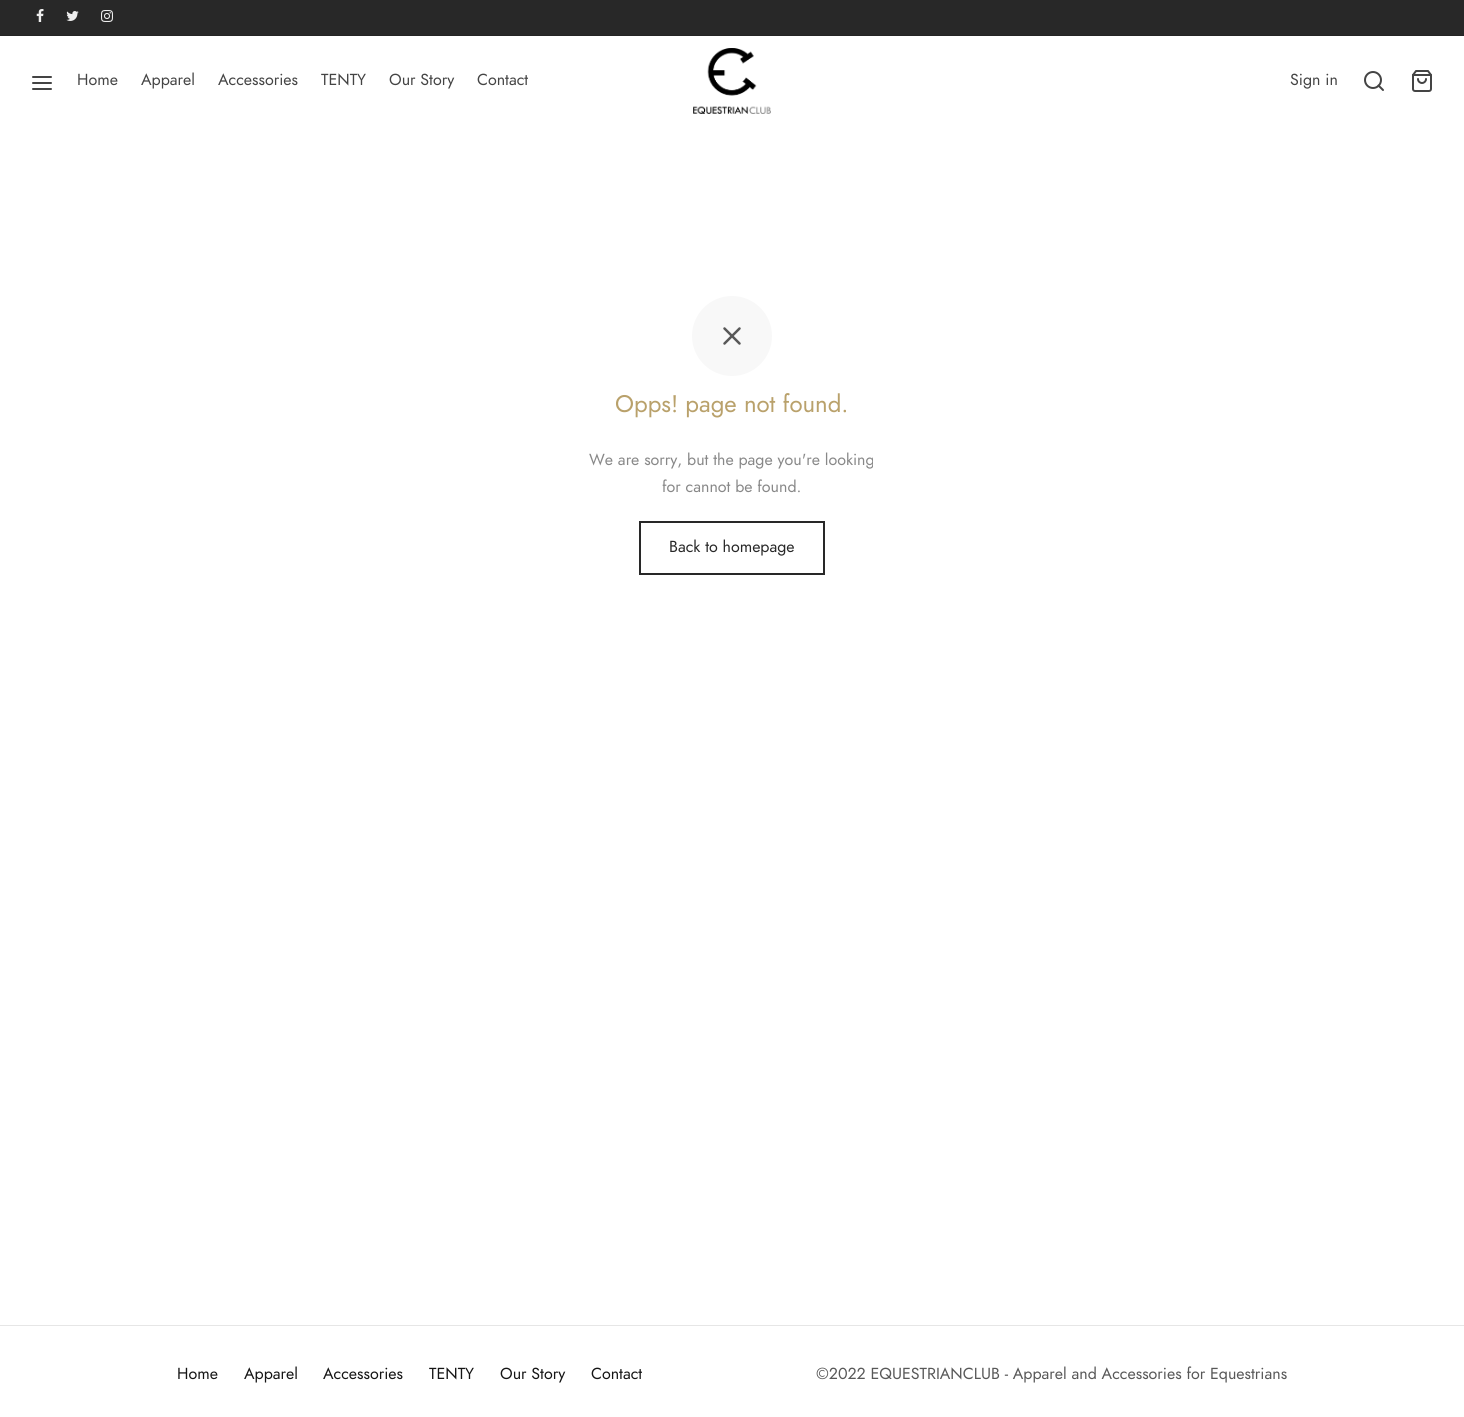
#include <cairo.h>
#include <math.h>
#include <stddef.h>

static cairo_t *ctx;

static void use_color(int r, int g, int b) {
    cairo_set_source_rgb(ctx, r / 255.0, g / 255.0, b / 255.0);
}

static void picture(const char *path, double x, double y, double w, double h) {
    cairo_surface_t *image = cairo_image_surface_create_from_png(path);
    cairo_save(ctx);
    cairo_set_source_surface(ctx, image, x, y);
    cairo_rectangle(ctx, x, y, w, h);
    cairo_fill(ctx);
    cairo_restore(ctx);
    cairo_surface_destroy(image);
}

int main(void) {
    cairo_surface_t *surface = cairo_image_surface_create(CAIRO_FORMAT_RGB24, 1464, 1417);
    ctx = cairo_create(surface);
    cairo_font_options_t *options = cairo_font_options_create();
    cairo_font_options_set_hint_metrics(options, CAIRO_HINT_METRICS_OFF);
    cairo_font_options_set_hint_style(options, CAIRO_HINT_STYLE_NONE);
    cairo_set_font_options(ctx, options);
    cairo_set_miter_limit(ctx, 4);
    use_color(255, 255, 255);
    cairo_paint(ctx);
    use_color(40, 40, 40);
    cairo_rectangle(ctx, 0, 0, 1464, 35);
    cairo_fill(ctx);
    picture("img1.png", 36, 9, 8, 13);
    picture("img2.png", 66, 11, 13, 10);
    picture("img3.png", 101, 10, 12, 12);
    use_color(36, 36, 36);
    cairo_rectangle(ctx, 0, 35, 1464, 1);
    cairo_fill(ctx);
    cairo_new_path(ctx);
    cairo_move_to(ctx, 33, 83);
    cairo_line_to(ctx, 51, 83);
    cairo_move_to(ctx, 33, 77);
    cairo_line_to(ctx, 51, 77);
    cairo_move_to(ctx, 33, 89);
    cairo_line_to(ctx, 51, 89);
    use_color(68, 68, 68);
    cairo_set_line_cap(ctx, CAIRO_LINE_CAP_ROUND);
    cairo_set_line_join(ctx, CAIRO_LINE_JOIN_ROUND);
    cairo_stroke(ctx);
    cairo_select_font_face(ctx, "Jost", CAIRO_FONT_SLANT_NORMAL, CAIRO_FONT_WEIGHT_NORMAL);
    cairo_set_font_size(ctx, 16);
    cairo_move_to(ctx, 77, 85);
    cairo_show_text(ctx, "Home");
    cairo_move_to(ctx, 141, 85);
    cairo_show_text(ctx, "Apparel");
    cairo_move_to(ctx, 218, 85);
    cairo_show_text(ctx, "Accessories");
    cairo_move_to(ctx, 321, 85);
    cairo_show_text(ctx, "TENTY");
    cairo_move_to(ctx, 389, 85);
    cairo_show_text(ctx, "Our Story");
    cairo_move_to(ctx, 477, 85);
    cairo_show_text(ctx, "Contact");
    picture("img4.png", 693, 48, 78, 66);
    cairo_move_to(ctx, 1290, 85);
    cairo_show_text(ctx, "Sign in");
    cairo_new_path(ctx);
    cairo_arc(ctx, 1373, 80, 8, 0, 2 * M_PI);
    cairo_set_line_cap(ctx, CAIRO_LINE_CAP_BUTT);
    cairo_set_line_join(ctx, CAIRO_LINE_JOIN_MITER);
    cairo_stroke(ctx);
    cairo_new_path(ctx);
    cairo_move_to(ctx, 1383, 90);
    cairo_line_to(ctx, 1378.5, 85.5);
    cairo_set_line_cap(ctx, CAIRO_LINE_CAP_ROUND);
    cairo_set_line_join(ctx, CAIRO_LINE_JOIN_ROUND);
    cairo_stroke(ctx);
    picture("img5.png", 1412, 70, 20, 22);
    use_color(248, 248, 248);
    cairo_arc(ctx, 732, 336, 40, 0, 2 * M_PI);
    cairo_fill(ctx);
    cairo_new_path(ctx);
    cairo_move_to(ctx, 739.5, 328.5);
    cairo_line_to(ctx, 724.5, 343.5);
    cairo_move_to(ctx, 724.5, 328.5);
    cairo_line_to(ctx, 739.5, 343.5);
    use_color(88, 88, 88);
    cairo_set_line_width(ctx, 2.5);
    cairo_stroke(ctx);
    cairo_set_font_size(ctx, 24);
    use_color(185, 161, 107);
    cairo_move_to(ctx, 615, 412);
    cairo_show_text(ctx, "Opps! page not found.");
    cairo_set_font_size(ctx, 16);
    use_color(136, 136, 136);
    cairo_move_to(ctx, 589, 465);
    cairo_show_text(ctx, "We are sorry, but the page you're looking");
    cairo_move_to(ctx, 662, 492);
    cairo_show_text(ctx, "for cannot be found.");
    cairo_rectangle(ctx, 640, 522, 184, 52);
    use_color(40, 40, 40);
    cairo_set_line_width(ctx, 2);
    cairo_set_line_cap(ctx, CAIRO_LINE_CAP_BUTT);
    cairo_set_line_join(ctx, CAIRO_LINE_JOIN_MITER);
    cairo_stroke(ctx);
    cairo_move_to(ctx, 669, 552);
    cairo_show_text(ctx, "Back to homepage");
    use_color(230, 230, 230);
    cairo_rectangle(ctx, 0, 1325, 1464, 1);
    cairo_fill(ctx);
    use_color(21, 21, 21);
    cairo_move_to(ctx, 177, 1379);
    cairo_show_text(ctx, "Home");
    cairo_move_to(ctx, 244, 1379);
    cairo_show_text(ctx, "Apparel");
    cairo_move_to(ctx, 323, 1379);
    cairo_show_text(ctx, "Accessories");
    cairo_move_to(ctx, 429, 1379);
    cairo_show_text(ctx, "TENTY");
    cairo_move_to(ctx, 500, 1379);
    cairo_show_text(ctx, "Our Story");
    cairo_move_to(ctx, 591, 1379);
    cairo_show_text(ctx, "Contact");
    use_color(88, 88, 88);
    cairo_move_to(ctx, 816, 1379);
    cairo_show_text(ctx, "©2022 EQUESTRIANCLUB - Apparel and Accessories for Equestrians");
    cairo_surface_write_to_png(surface, "result.png");
    cairo_font_options_destroy(options);
    cairo_destroy(ctx);
    cairo_surface_destroy(surface);
    return 0;
}
